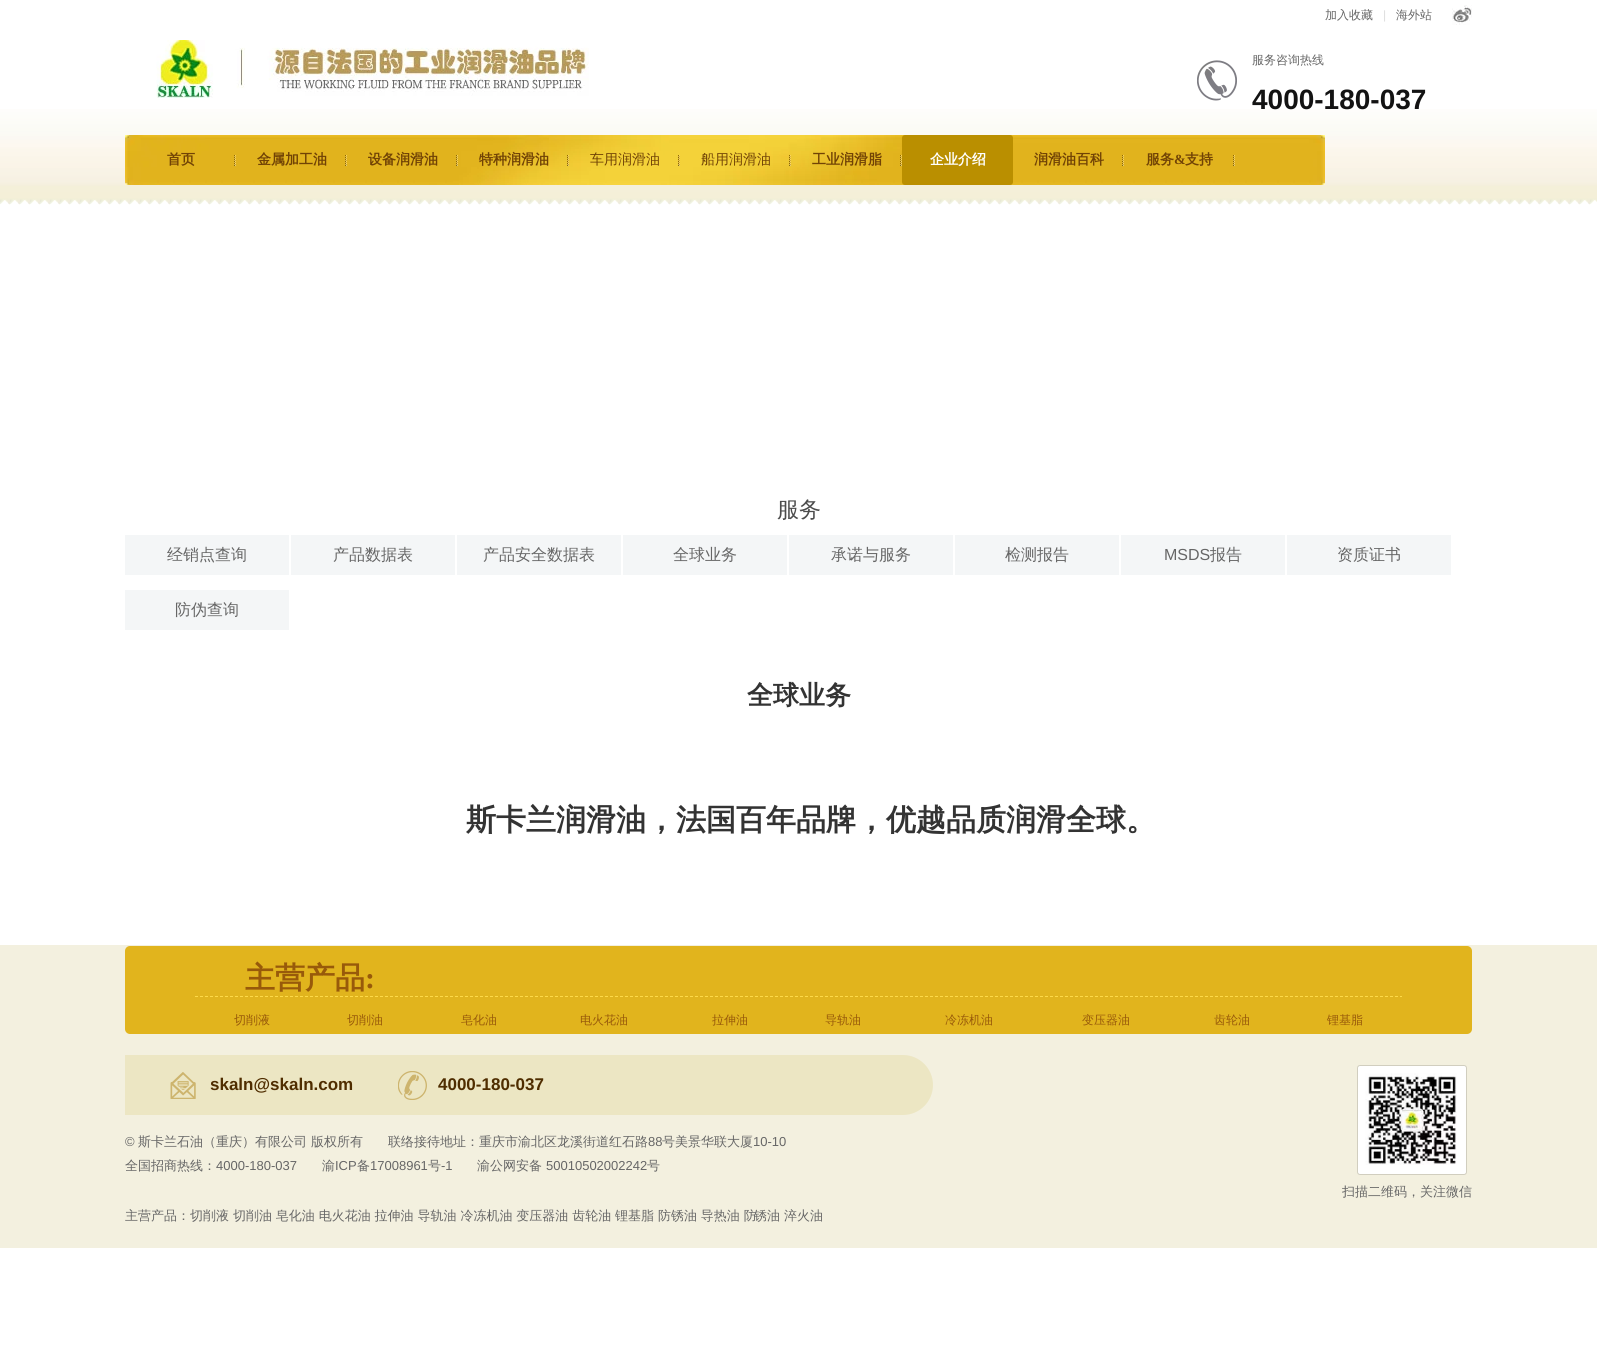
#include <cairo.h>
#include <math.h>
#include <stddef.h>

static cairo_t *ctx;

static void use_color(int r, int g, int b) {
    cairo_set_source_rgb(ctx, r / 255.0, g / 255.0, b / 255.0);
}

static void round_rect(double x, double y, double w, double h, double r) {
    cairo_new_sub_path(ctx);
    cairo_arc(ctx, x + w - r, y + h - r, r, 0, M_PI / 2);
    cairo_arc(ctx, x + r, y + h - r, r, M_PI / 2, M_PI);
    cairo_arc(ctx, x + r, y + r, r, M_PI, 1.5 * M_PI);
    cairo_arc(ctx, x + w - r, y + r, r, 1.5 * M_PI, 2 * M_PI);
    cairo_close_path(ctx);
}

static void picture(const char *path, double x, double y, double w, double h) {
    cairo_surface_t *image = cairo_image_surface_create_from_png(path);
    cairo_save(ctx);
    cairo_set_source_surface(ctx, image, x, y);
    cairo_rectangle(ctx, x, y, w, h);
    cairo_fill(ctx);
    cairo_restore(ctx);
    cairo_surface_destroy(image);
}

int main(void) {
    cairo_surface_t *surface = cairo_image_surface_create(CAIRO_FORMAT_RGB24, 1597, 1357);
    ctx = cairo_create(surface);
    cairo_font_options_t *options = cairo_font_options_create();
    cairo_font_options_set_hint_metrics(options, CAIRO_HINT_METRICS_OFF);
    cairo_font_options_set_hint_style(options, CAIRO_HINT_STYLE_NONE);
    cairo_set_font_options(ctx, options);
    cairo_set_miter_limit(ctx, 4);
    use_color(255, 255, 255);
    cairo_paint(ctx);
    picture("img1.png", 0, 109, 1597, 96);
    cairo_select_font_face(ctx, "WenQuanYi Zen Hei Medium", CAIRO_FONT_SLANT_NORMAL, CAIRO_FONT_WEIGHT_NORMAL);
    cairo_set_font_size(ctx, 12);
    use_color(102, 102, 102);
    cairo_move_to(ctx, 1325, 19);
    cairo_show_text(ctx, "加入收藏");
    cairo_select_font_face(ctx, "Liberation Sans", CAIRO_FONT_SLANT_NORMAL, CAIRO_FONT_WEIGHT_NORMAL);
    use_color(221, 221, 221);
    cairo_move_to(ctx, 1383, 19);
    cairo_show_text(ctx, "|");
    cairo_select_font_face(ctx, "WenQuanYi Zen Hei Medium", CAIRO_FONT_SLANT_NORMAL, CAIRO_FONT_WEIGHT_NORMAL);
    use_color(102, 102, 102);
    cairo_move_to(ctx, 1396, 19);
    cairo_show_text(ctx, "海外站");
    picture("img2.png", 1452, 5, 20, 20);
    picture("img3.png", 156, 40, 433, 58);
    picture("img4.png", 1197, 60, 40, 41);
    cairo_move_to(ctx, 1252, 64);
    cairo_show_text(ctx, "服务咨询热线");
    cairo_select_font_face(ctx, "Liberation Sans", CAIRO_FONT_SLANT_NORMAL, CAIRO_FONT_WEIGHT_BOLD);
    cairo_set_font_size(ctx, 28);
    use_color(19, 19, 19);
    cairo_move_to(ctx, 1252, 109);
    cairo_show_text(ctx, "4000-180-037");
    picture("img5.png", 125, 135, 1200, 50);
    picture("img6.png", 234, 155, 2, 11);
    cairo_select_font_face(ctx, "WenQuanYi Zen Hei", CAIRO_FONT_SLANT_NORMAL, CAIRO_FONT_WEIGHT_BOLD);
    cairo_set_font_size(ctx, 14);
    use_color(113, 67, 5);
    cairo_move_to(ctx, 167, 164);
    cairo_show_text(ctx, "首页");
    picture("img6.png", 345, 155, 2, 11);
    cairo_move_to(ctx, 257, 164);
    cairo_show_text(ctx, "金属加工油");
    picture("img6.png", 456, 155, 2, 11);
    cairo_move_to(ctx, 368, 164);
    cairo_show_text(ctx, "设备润滑油");
    picture("img6.png", 567, 155, 2, 11);
    cairo_move_to(ctx, 479, 164);
    cairo_show_text(ctx, "特种润滑油");
    picture("img6.png", 678, 155, 2, 11);
    cairo_select_font_face(ctx, "WenQuanYi Zen Hei Medium", CAIRO_FONT_SLANT_NORMAL, CAIRO_FONT_WEIGHT_NORMAL);
    cairo_move_to(ctx, 590, 164);
    cairo_show_text(ctx, "车用润滑油");
    picture("img6.png", 789, 155, 2, 11);
    cairo_move_to(ctx, 701, 164);
    cairo_show_text(ctx, "船用润滑油");
    picture("img6.png", 900, 155, 2, 11);
    cairo_select_font_face(ctx, "WenQuanYi Zen Hei", CAIRO_FONT_SLANT_NORMAL, CAIRO_FONT_WEIGHT_BOLD);
    cairo_move_to(ctx, 812, 164);
    cairo_show_text(ctx, "工业润滑脂");
    use_color(186, 143, 0);
    round_rect(902, 135, 111, 50, 3);
    cairo_fill(ctx);
    use_color(255, 255, 255);
    cairo_move_to(ctx, 930, 164);
    cairo_show_text(ctx, "企业介绍");
    picture("img6.png", 1122, 155, 2, 11);
    use_color(113, 67, 5);
    cairo_move_to(ctx, 1034, 164);
    cairo_show_text(ctx, "润滑油百科");
    picture("img6.png", 1233, 155, 2, 11);
    cairo_move_to(ctx, 1146, 164);
    cairo_show_text(ctx, "服务");
    cairo_select_font_face(ctx, "Liberation Serif", CAIRO_FONT_SLANT_NORMAL, CAIRO_FONT_WEIGHT_BOLD);
    cairo_move_to(ctx, 1174, 164);
    cairo_show_text(ctx, "&");
    cairo_select_font_face(ctx, "WenQuanYi Zen Hei", CAIRO_FONT_SLANT_NORMAL, CAIRO_FONT_WEIGHT_BOLD);
    cairo_move_to(ctx, 1185, 164);
    cairo_show_text(ctx, "支持");
    cairo_select_font_face(ctx, "WenQuanYi Zen Hei Medium", CAIRO_FONT_SLANT_NORMAL, CAIRO_FONT_WEIGHT_NORMAL);
    cairo_set_font_size(ctx, 22);
    use_color(76, 76, 76);
    cairo_move_to(ctx, 777, 517);
    cairo_show_text(ctx, "服务");
    use_color(244, 246, 247);
    cairo_rectangle(ctx, 125, 535, 164, 40);
    cairo_fill(ctx);
    cairo_set_font_size(ctx, 16);
    use_color(102, 102, 102);
    cairo_move_to(ctx, 167, 560);
    cairo_show_text(ctx, "经销点查询");
    use_color(244, 246, 247);
    cairo_rectangle(ctx, 291, 535, 164, 40);
    cairo_fill(ctx);
    use_color(102, 102, 102);
    cairo_move_to(ctx, 333, 560);
    cairo_show_text(ctx, "产品数据表");
    use_color(244, 246, 247);
    cairo_rectangle(ctx, 457, 535, 164, 40);
    cairo_fill(ctx);
    use_color(102, 102, 102);
    cairo_move_to(ctx, 483, 560);
    cairo_show_text(ctx, "产品安全数据表");
    use_color(244, 246, 247);
    cairo_rectangle(ctx, 623, 535, 164, 40);
    cairo_fill(ctx);
    use_color(102, 102, 102);
    cairo_move_to(ctx, 673, 560);
    cairo_show_text(ctx, "全球业务");
    use_color(244, 246, 247);
    cairo_rectangle(ctx, 789, 535, 164, 40);
    cairo_fill(ctx);
    use_color(102, 102, 102);
    cairo_move_to(ctx, 831, 560);
    cairo_show_text(ctx, "承诺与服务");
    use_color(244, 246, 247);
    cairo_rectangle(ctx, 955, 535, 164, 40);
    cairo_fill(ctx);
    use_color(102, 102, 102);
    cairo_move_to(ctx, 1005, 560);
    cairo_show_text(ctx, "检测报告");
    use_color(244, 246, 247);
    cairo_rectangle(ctx, 1121, 535, 164, 40);
    cairo_fill(ctx);
    cairo_select_font_face(ctx, "Liberation Sans", CAIRO_FONT_SLANT_NORMAL, CAIRO_FONT_WEIGHT_NORMAL);
    use_color(102, 102, 102);
    cairo_move_to(ctx, 1164, 560);
    cairo_show_text(ctx, "MSDS");
    cairo_select_font_face(ctx, "WenQuanYi Zen Hei Medium", CAIRO_FONT_SLANT_NORMAL, CAIRO_FONT_WEIGHT_NORMAL);
    cairo_move_to(ctx, 1210, 560);
    cairo_show_text(ctx, "报告");
    use_color(244, 246, 247);
    cairo_rectangle(ctx, 1287, 535, 164, 40);
    cairo_fill(ctx);
    use_color(102, 102, 102);
    cairo_move_to(ctx, 1337, 560);
    cairo_show_text(ctx, "资质证书");
    use_color(244, 246, 247);
    cairo_rectangle(ctx, 125, 590, 164, 40);
    cairo_fill(ctx);
    use_color(102, 102, 102);
    cairo_move_to(ctx, 175, 615);
    cairo_show_text(ctx, "防伪查询");
    cairo_select_font_face(ctx, "WenQuanYi Zen Hei", CAIRO_FONT_SLANT_NORMAL, CAIRO_FONT_WEIGHT_BOLD);
    cairo_set_font_size(ctx, 26);
    use_color(51, 51, 51);
    cairo_move_to(ctx, 747, 704);
    cairo_show_text(ctx, "全球业务");
    cairo_set_font_size(ctx, 30);
    cairo_move_to(ctx, 466, 830);
    cairo_show_text(ctx, "斯卡兰润滑油，法国百年品牌，优越品质润滑全球。");
    use_color(243, 240, 223);
    cairo_rectangle(ctx, 0, 945, 1597, 303);
    cairo_fill(ctx);
    use_color(225, 180, 29);
    round_rect(125, 946, 1347, 88, 5);
    cairo_fill(ctx);
    cairo_new_path(ctx);
    cairo_move_to(ctx, 195, 996.5);
    cairo_line_to(ctx, 1402, 996.5);
    use_color(253, 218, 72);
    cairo_set_line_width(ctx, 1);
    cairo_set_dash(ctx, (double[]){3, 2}, 2, 0);
    cairo_stroke(ctx);
    use_color(152, 90, 10);
    cairo_move_to(ctx, 245, 988);
    cairo_show_text(ctx, "主营产品");
    cairo_select_font_face(ctx, "Liberation Serif", CAIRO_FONT_SLANT_NORMAL, CAIRO_FONT_WEIGHT_BOLD);
    cairo_move_to(ctx, 365, 988);
    cairo_show_text(ctx, ":");
    cairo_select_font_face(ctx, "WenQuanYi Zen Hei Medium", CAIRO_FONT_SLANT_NORMAL, CAIRO_FONT_WEIGHT_NORMAL);
    cairo_set_font_size(ctx, 12);
    cairo_move_to(ctx, 234, 1024);
    cairo_show_text(ctx, "切削液");
    cairo_move_to(ctx, 347, 1024);
    cairo_show_text(ctx, "切削油");
    cairo_move_to(ctx, 461, 1024);
    cairo_show_text(ctx, "皂化油");
    cairo_move_to(ctx, 580, 1024);
    cairo_show_text(ctx, "电火花油");
    cairo_move_to(ctx, 712, 1024);
    cairo_show_text(ctx, "拉伸油");
    cairo_move_to(ctx, 825, 1024);
    cairo_show_text(ctx, "导轨油");
    cairo_move_to(ctx, 945, 1024);
    cairo_show_text(ctx, "冷冻机油");
    cairo_move_to(ctx, 1082, 1024);
    cairo_show_text(ctx, "变压器油");
    cairo_move_to(ctx, 1214, 1024);
    cairo_show_text(ctx, "齿轮油");
    cairo_move_to(ctx, 1327, 1024);
    cairo_show_text(ctx, "锂基脂");
    use_color(236, 230, 195);
    cairo_new_path(ctx);
    cairo_move_to(ctx, 125, 1055);
    cairo_line_to(ctx, 903, 1055);
    cairo_curve_to(ctx, 919.5, 1055, 933, 1068.5, 933, 1085);
    cairo_curve_to(ctx, 933, 1101.5, 919.5, 1115, 903, 1115);
    cairo_line_to(ctx, 125, 1115);
    cairo_close_path(ctx);
    cairo_fill(ctx);
    picture("img7.png", 170, 1072, 26, 27);
    cairo_select_font_face(ctx, "Liberation Sans", CAIRO_FONT_SLANT_NORMAL, CAIRO_FONT_WEIGHT_BOLD);
    cairo_set_font_size(ctx, 17);
    use_color(79, 45, 0);
    cairo_move_to(ctx, 210, 1090);
    cairo_show_text(ctx, "skaln@skaln.com");
    picture("img8.png", 398, 1071, 29, 29);
    cairo_move_to(ctx, 438, 1090);
    cairo_show_text(ctx, "4000-180-037");
    cairo_select_font_face(ctx, "Liberation Sans", CAIRO_FONT_SLANT_NORMAL, CAIRO_FONT_WEIGHT_NORMAL);
    cairo_set_font_size(ctx, 13);
    use_color(102, 102, 102);
    cairo_move_to(ctx, 125, 1146);
    cairo_show_text(ctx, "©");
    cairo_select_font_face(ctx, "WenQuanYi Zen Hei Medium", CAIRO_FONT_SLANT_NORMAL, CAIRO_FONT_WEIGHT_NORMAL);
    cairo_move_to(ctx, 138, 1146);
    cairo_show_text(ctx, "斯卡兰石油（重庆）有限公司 版权所有");
    cairo_move_to(ctx, 388, 1146);
    cairo_show_text(ctx, "联络接待地址：重庆市渝北区龙溪街道红石路");
    cairo_select_font_face(ctx, "Liberation Sans", CAIRO_FONT_SLANT_NORMAL, CAIRO_FONT_WEIGHT_NORMAL);
    cairo_move_to(ctx, 648, 1146);
    cairo_show_text(ctx, "88");
    cairo_select_font_face(ctx, "WenQuanYi Zen Hei Medium", CAIRO_FONT_SLANT_NORMAL, CAIRO_FONT_WEIGHT_NORMAL);
    cairo_move_to(ctx, 662, 1146);
    cairo_show_text(ctx, "号美景华联大厦");
    cairo_select_font_face(ctx, "Liberation Sans", CAIRO_FONT_SLANT_NORMAL, CAIRO_FONT_WEIGHT_NORMAL);
    cairo_move_to(ctx, 753, 1146);
    cairo_show_text(ctx, "10-10");
    cairo_select_font_face(ctx, "WenQuanYi Zen Hei Medium", CAIRO_FONT_SLANT_NORMAL, CAIRO_FONT_WEIGHT_NORMAL);
    cairo_move_to(ctx, 125, 1170);
    cairo_show_text(ctx, "全国招商热线：");
    cairo_select_font_face(ctx, "Liberation Sans", CAIRO_FONT_SLANT_NORMAL, CAIRO_FONT_WEIGHT_NORMAL);
    cairo_move_to(ctx, 216, 1170);
    cairo_show_text(ctx, "4000-180-037");
    cairo_select_font_face(ctx, "WenQuanYi Zen Hei Medium", CAIRO_FONT_SLANT_NORMAL, CAIRO_FONT_WEIGHT_NORMAL);
    cairo_move_to(ctx, 322, 1170);
    cairo_show_text(ctx, "渝");
    cairo_select_font_face(ctx, "Liberation Sans", CAIRO_FONT_SLANT_NORMAL, CAIRO_FONT_WEIGHT_NORMAL);
    cairo_move_to(ctx, 335, 1170);
    cairo_show_text(ctx, "ICP");
    cairo_select_font_face(ctx, "WenQuanYi Zen Hei Medium", CAIRO_FONT_SLANT_NORMAL, CAIRO_FONT_WEIGHT_NORMAL);
    cairo_move_to(ctx, 357, 1170);
    cairo_show_text(ctx, "备");
    cairo_select_font_face(ctx, "Liberation Sans", CAIRO_FONT_SLANT_NORMAL, CAIRO_FONT_WEIGHT_NORMAL);
    cairo_move_to(ctx, 370, 1170);
    cairo_show_text(ctx, "17008961");
    cairo_select_font_face(ctx, "WenQuanYi Zen Hei Medium", CAIRO_FONT_SLANT_NORMAL, CAIRO_FONT_WEIGHT_NORMAL);
    cairo_move_to(ctx, 428, 1170);
    cairo_show_text(ctx, "号");
    cairo_select_font_face(ctx, "Liberation Sans", CAIRO_FONT_SLANT_NORMAL, CAIRO_FONT_WEIGHT_NORMAL);
    cairo_move_to(ctx, 441, 1170);
    cairo_show_text(ctx, "-1");
    cairo_select_font_face(ctx, "WenQuanYi Zen Hei Medium", CAIRO_FONT_SLANT_NORMAL, CAIRO_FONT_WEIGHT_NORMAL);
    cairo_move_to(ctx, 477, 1170);
    cairo_show_text(ctx, "渝公网安备");
    cairo_select_font_face(ctx, "Liberation Sans", CAIRO_FONT_SLANT_NORMAL, CAIRO_FONT_WEIGHT_NORMAL);
    cairo_move_to(ctx, 546, 1170);
    cairo_show_text(ctx, "50010502002242");
    cairo_select_font_face(ctx, "WenQuanYi Zen Hei Medium", CAIRO_FONT_SLANT_NORMAL, CAIRO_FONT_WEIGHT_NORMAL);
    cairo_move_to(ctx, 647, 1170);
    cairo_show_text(ctx, "号");
    use_color(255, 255, 255);
    round_rect(1357.5, 1065.5, 109, 109, 2.5);
    cairo_fill_preserve(ctx);
    use_color(209, 206, 191);
    cairo_set_dash(ctx, NULL, 0, 0);
    cairo_stroke(ctx);
    picture("img9.png", 1365, 1073, 92, 92);
    use_color(102, 102, 102);
    cairo_move_to(ctx, 1342, 1196);
    cairo_show_text(ctx, "扫描二维码，关注微信");
    cairo_move_to(ctx, 125, 1220);
    cairo_show_text(ctx, "主营产品：切削液 切削油 皂化油 电火花油 拉伸油 导轨油 冷冻机油 变压器油 齿轮油 锂基脂 防锈油 导热油 防");
    cairo_move_to(ctx, 754, 1220);
    cairo_show_text(ctx, "锈油 淬火油");
    cairo_surface_write_to_png(surface, "result.png");
    cairo_font_options_destroy(options);
    cairo_destroy(ctx);
    cairo_surface_destroy(surface);
    return 0;
}
